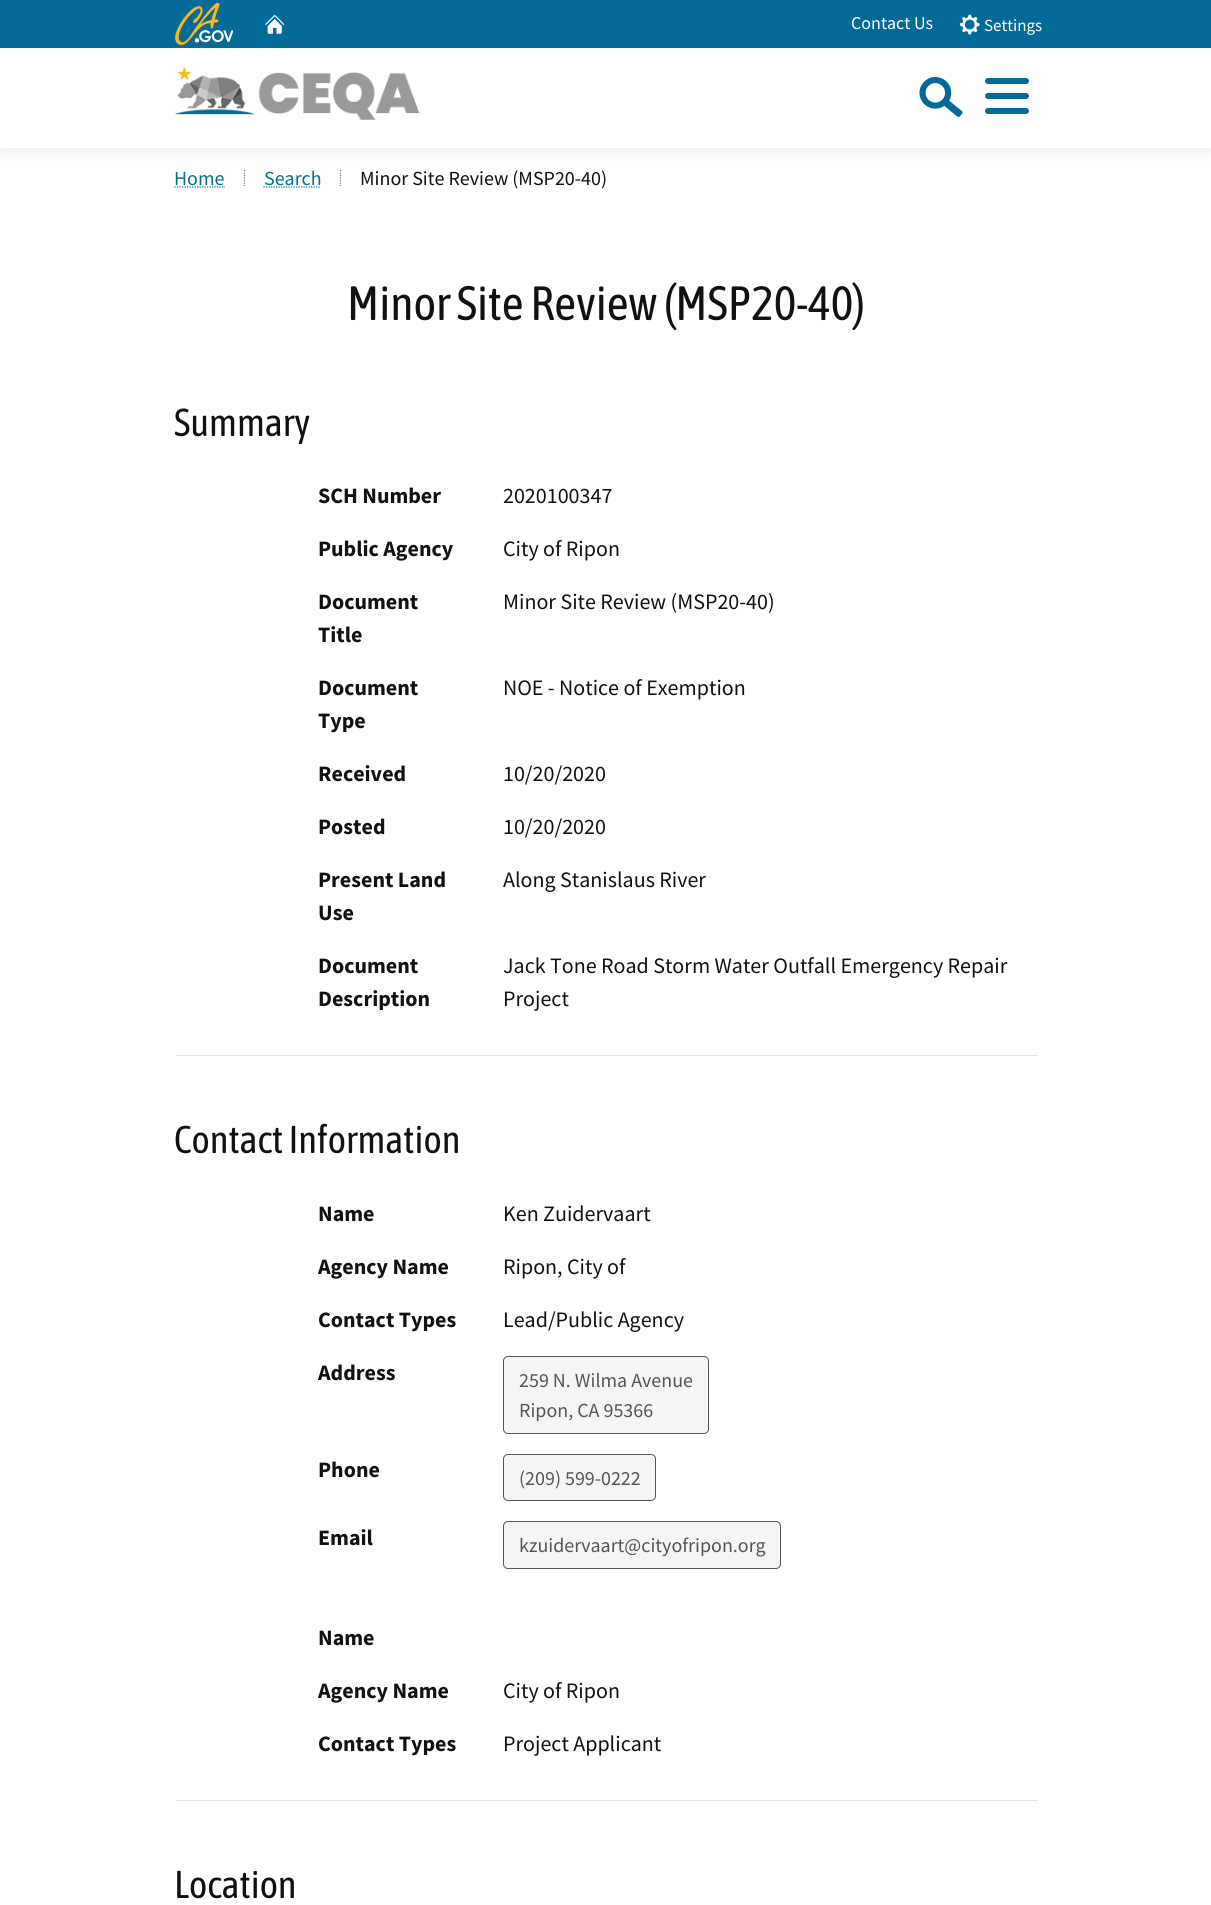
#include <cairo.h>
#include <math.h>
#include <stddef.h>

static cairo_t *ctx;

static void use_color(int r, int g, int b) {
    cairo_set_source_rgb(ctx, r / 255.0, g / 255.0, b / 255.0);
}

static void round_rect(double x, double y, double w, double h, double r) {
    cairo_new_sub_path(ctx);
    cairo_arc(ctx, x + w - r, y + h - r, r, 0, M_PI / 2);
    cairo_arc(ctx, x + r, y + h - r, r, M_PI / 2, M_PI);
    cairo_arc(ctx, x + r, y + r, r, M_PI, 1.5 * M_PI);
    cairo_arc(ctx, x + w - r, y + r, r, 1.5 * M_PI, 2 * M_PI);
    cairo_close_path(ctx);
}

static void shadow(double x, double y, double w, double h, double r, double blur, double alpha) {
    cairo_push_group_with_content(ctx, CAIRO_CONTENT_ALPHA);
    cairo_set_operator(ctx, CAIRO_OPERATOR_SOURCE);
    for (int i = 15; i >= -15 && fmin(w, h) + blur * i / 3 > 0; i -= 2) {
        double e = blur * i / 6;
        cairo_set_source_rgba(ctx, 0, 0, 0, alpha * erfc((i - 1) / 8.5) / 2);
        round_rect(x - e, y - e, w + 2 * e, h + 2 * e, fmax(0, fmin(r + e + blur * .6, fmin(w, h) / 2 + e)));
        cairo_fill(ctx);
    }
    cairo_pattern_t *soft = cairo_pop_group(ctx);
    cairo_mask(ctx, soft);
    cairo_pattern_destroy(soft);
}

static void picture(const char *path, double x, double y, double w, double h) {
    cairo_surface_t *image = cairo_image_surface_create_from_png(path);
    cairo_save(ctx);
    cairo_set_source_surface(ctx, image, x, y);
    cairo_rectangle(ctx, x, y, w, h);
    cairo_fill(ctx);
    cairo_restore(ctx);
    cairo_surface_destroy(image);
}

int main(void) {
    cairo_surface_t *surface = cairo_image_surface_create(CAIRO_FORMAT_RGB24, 1211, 1905);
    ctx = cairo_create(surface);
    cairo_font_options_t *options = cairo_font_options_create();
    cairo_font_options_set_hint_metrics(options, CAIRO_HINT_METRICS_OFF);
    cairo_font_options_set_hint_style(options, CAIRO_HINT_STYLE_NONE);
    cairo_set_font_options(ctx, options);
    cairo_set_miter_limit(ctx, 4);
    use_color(255, 255, 255);
    cairo_paint(ctx);
    cairo_new_path(ctx);
    cairo_move_to(ctx, 244.5, 170);
    cairo_line_to(ctx, 244.5, 186);
    use_color(119, 119, 119);
    cairo_set_line_width(ctx, 1.2);
    cairo_set_dash(ctx, (double[]){1.25, 1.25}, 2, 0);
    cairo_stroke(ctx);
    cairo_new_path(ctx);
    cairo_move_to(ctx, 340.5, 170);
    cairo_line_to(ctx, 340.5, 186);
    cairo_stroke(ctx);
    use_color(189, 189, 189);
    shadow(0, 0, 1211, 148, 0, 9.5, 0.4);
    use_color(255, 255, 255);
    cairo_rectangle(ctx, 0, 48, 1211, 100);
    cairo_fill(ctx);
    use_color(4, 107, 153);
    cairo_rectangle(ctx, 0, 0, 1211, 48);
    cairo_fill(ctx);
    picture("img1.png", 175, 3, 58, 42);
    picture("img2.png", 265, 14, 20, 20);
    cairo_select_font_face(ctx, "Source Sans Pro", CAIRO_FONT_SLANT_NORMAL, CAIRO_FONT_WEIGHT_NORMAL);
    cairo_set_font_size(ctx, 18);
    use_color(255, 255, 255);
    cairo_move_to(ctx, 851, 29);
    cairo_show_text(ctx, "Contact Us");
    picture("img3.png", 959, 14, 21, 21);
    cairo_set_font_size(ctx, 17);
    cairo_move_to(ctx, 984, 31);
    cairo_show_text(ctx, "Settings");
    picture("img4.png", 175, 67, 245, 53);
    picture("img5.png", 919, 76, 44, 41);
    use_color(4, 107, 153);
    round_rect(985, 78, 44, 6, 3);
    cairo_fill(ctx);
    round_rect(985, 93, 44, 6, 3);
    cairo_fill(ctx);
    round_rect(985, 108, 44, 6, 3);
    cairo_fill(ctx);
    cairo_set_font_size(ctx, 20);
    cairo_move_to(ctx, 174, 185);
    cairo_show_text(ctx, "Home");
    cairo_new_path(ctx);
    cairo_move_to(ctx, 174.5, 187);
    cairo_line_to(ctx, 225, 187);
    cairo_stroke(ctx);
    cairo_move_to(ctx, 264, 185);
    cairo_show_text(ctx, "Search");
    cairo_new_path(ctx);
    cairo_move_to(ctx, 263.5, 187);
    cairo_line_to(ctx, 321, 187);
    cairo_stroke(ctx);
    use_color(17, 17, 17);
    cairo_move_to(ctx, 360, 185);
    cairo_show_text(ctx, "Minor Site Review (MSP20-40)");
    cairo_select_font_face(ctx, "Asap Condensed", CAIRO_FONT_SLANT_NORMAL, CAIRO_FONT_WEIGHT_NORMAL);
    cairo_set_font_size(ctx, 48);
    cairo_move_to(ctx, 347, 320);
    cairo_show_text(ctx, "Minor Site Review (MSP20-40)");
    cairo_set_font_size(ctx, 38.75);
    cairo_move_to(ctx, 174, 436);
    cairo_show_text(ctx, "Summary");
    cairo_select_font_face(ctx, "Source Sans Pro", CAIRO_FONT_SLANT_NORMAL, CAIRO_FONT_WEIGHT_BOLD);
    cairo_set_font_size(ctx, 22);
    cairo_move_to(ctx, 318, 503);
    cairo_show_text(ctx, "SCH Number");
    cairo_select_font_face(ctx, "Source Sans Pro", CAIRO_FONT_SLANT_NORMAL, CAIRO_FONT_WEIGHT_NORMAL);
    cairo_move_to(ctx, 503, 503);
    cairo_show_text(ctx, "2020100347");
    cairo_select_font_face(ctx, "Source Sans Pro", CAIRO_FONT_SLANT_NORMAL, CAIRO_FONT_WEIGHT_BOLD);
    cairo_move_to(ctx, 318, 556);
    cairo_show_text(ctx, "Public Agency");
    cairo_select_font_face(ctx, "Source Sans Pro", CAIRO_FONT_SLANT_NORMAL, CAIRO_FONT_WEIGHT_NORMAL);
    cairo_move_to(ctx, 503, 556);
    cairo_show_text(ctx, "City of Ripon");
    cairo_select_font_face(ctx, "Source Sans Pro", CAIRO_FONT_SLANT_NORMAL, CAIRO_FONT_WEIGHT_BOLD);
    cairo_move_to(ctx, 318, 609);
    cairo_show_text(ctx, "Document");
    cairo_move_to(ctx, 318, 642);
    cairo_show_text(ctx, "Title");
    cairo_select_font_face(ctx, "Source Sans Pro", CAIRO_FONT_SLANT_NORMAL, CAIRO_FONT_WEIGHT_NORMAL);
    cairo_move_to(ctx, 503, 609);
    cairo_show_text(ctx, "Minor Site Review (MSP20-40)");
    cairo_select_font_face(ctx, "Source Sans Pro", CAIRO_FONT_SLANT_NORMAL, CAIRO_FONT_WEIGHT_BOLD);
    cairo_move_to(ctx, 318, 695);
    cairo_show_text(ctx, "Document");
    cairo_move_to(ctx, 318, 728);
    cairo_show_text(ctx, "Type");
    cairo_select_font_face(ctx, "Source Sans Pro", CAIRO_FONT_SLANT_NORMAL, CAIRO_FONT_WEIGHT_NORMAL);
    cairo_move_to(ctx, 503, 695);
    cairo_show_text(ctx, "NOE - Notice of Exemption");
    cairo_select_font_face(ctx, "Source Sans Pro", CAIRO_FONT_SLANT_NORMAL, CAIRO_FONT_WEIGHT_BOLD);
    cairo_move_to(ctx, 318, 781);
    cairo_show_text(ctx, "Received");
    cairo_select_font_face(ctx, "Source Sans Pro", CAIRO_FONT_SLANT_NORMAL, CAIRO_FONT_WEIGHT_NORMAL);
    cairo_move_to(ctx, 503, 781);
    cairo_show_text(ctx, "10/20/2020");
    cairo_select_font_face(ctx, "Source Sans Pro", CAIRO_FONT_SLANT_NORMAL, CAIRO_FONT_WEIGHT_BOLD);
    cairo_move_to(ctx, 318, 834);
    cairo_show_text(ctx, "Posted");
    cairo_select_font_face(ctx, "Source Sans Pro", CAIRO_FONT_SLANT_NORMAL, CAIRO_FONT_WEIGHT_NORMAL);
    cairo_move_to(ctx, 503, 834);
    cairo_show_text(ctx, "10/20/2020");
    cairo_select_font_face(ctx, "Source Sans Pro", CAIRO_FONT_SLANT_NORMAL, CAIRO_FONT_WEIGHT_BOLD);
    cairo_move_to(ctx, 318, 887);
    cairo_show_text(ctx, "Present Land");
    cairo_move_to(ctx, 318, 920);
    cairo_show_text(ctx, "Use");
    cairo_select_font_face(ctx, "Source Sans Pro", CAIRO_FONT_SLANT_NORMAL, CAIRO_FONT_WEIGHT_NORMAL);
    cairo_move_to(ctx, 503, 887);
    cairo_show_text(ctx, "Along Stanislaus River");
    cairo_select_font_face(ctx, "Source Sans Pro", CAIRO_FONT_SLANT_NORMAL, CAIRO_FONT_WEIGHT_BOLD);
    cairo_move_to(ctx, 318, 973);
    cairo_show_text(ctx, "Document");
    cairo_move_to(ctx, 318, 1006);
    cairo_show_text(ctx, "Description");
    cairo_select_font_face(ctx, "Source Sans Pro", CAIRO_FONT_SLANT_NORMAL, CAIRO_FONT_WEIGHT_NORMAL);
    cairo_move_to(ctx, 503, 973);
    cairo_show_text(ctx, "Jack Tone Road Storm Water Outfall Emergency Repair");
    cairo_move_to(ctx, 503, 1006);
    cairo_show_text(ctx, "Project");
    use_color(230, 230, 230);
    cairo_rectangle(ctx, 175, 1055, 863, 1);
    cairo_fill(ctx);
    cairo_select_font_face(ctx, "Asap Condensed", CAIRO_FONT_SLANT_NORMAL, CAIRO_FONT_WEIGHT_NORMAL);
    cairo_set_font_size(ctx, 38.75);
    use_color(17, 17, 17);
    cairo_move_to(ctx, 174, 1153);
    cairo_show_text(ctx, "Contact Information");
    cairo_select_font_face(ctx, "Source Sans Pro", CAIRO_FONT_SLANT_NORMAL, CAIRO_FONT_WEIGHT_BOLD);
    cairo_set_font_size(ctx, 22);
    cairo_move_to(ctx, 318, 1221);
    cairo_show_text(ctx, "Name");
    cairo_select_font_face(ctx, "Source Sans Pro", CAIRO_FONT_SLANT_NORMAL, CAIRO_FONT_WEIGHT_NORMAL);
    cairo_move_to(ctx, 503, 1221);
    cairo_show_text(ctx, "Ken Zuidervaart");
    cairo_select_font_face(ctx, "Source Sans Pro", CAIRO_FONT_SLANT_NORMAL, CAIRO_FONT_WEIGHT_BOLD);
    cairo_move_to(ctx, 318, 1274);
    cairo_show_text(ctx, "Agency Name");
    cairo_select_font_face(ctx, "Source Sans Pro", CAIRO_FONT_SLANT_NORMAL, CAIRO_FONT_WEIGHT_NORMAL);
    cairo_move_to(ctx, 503, 1274);
    cairo_show_text(ctx, "Ripon, City of");
    cairo_select_font_face(ctx, "Source Sans Pro", CAIRO_FONT_SLANT_NORMAL, CAIRO_FONT_WEIGHT_BOLD);
    cairo_move_to(ctx, 318, 1327);
    cairo_show_text(ctx, "Contact Types");
    cairo_select_font_face(ctx, "Source Sans Pro", CAIRO_FONT_SLANT_NORMAL, CAIRO_FONT_WEIGHT_NORMAL);
    cairo_move_to(ctx, 503, 1327);
    cairo_show_text(ctx, "Lead/Public Agency");
    cairo_select_font_face(ctx, "Source Sans Pro", CAIRO_FONT_SLANT_NORMAL, CAIRO_FONT_WEIGHT_BOLD);
    cairo_move_to(ctx, 318, 1380);
    cairo_show_text(ctx, "Address");
    use_color(245, 245, 245);
    round_rect(503.5, 1356.5, 205, 77, 4.5);
    cairo_fill_preserve(ctx);
    use_color(85, 85, 85);
    cairo_set_line_width(ctx, 1);
    cairo_set_dash(ctx, NULL, 0, 0);
    cairo_stroke(ctx);
    cairo_select_font_face(ctx, "Source Sans Pro", CAIRO_FONT_SLANT_NORMAL, CAIRO_FONT_WEIGHT_NORMAL);
    cairo_set_font_size(ctx, 20);
    cairo_move_to(ctx, 519, 1387);
    cairo_show_text(ctx, "259 N. Wilma Avenue");
    cairo_move_to(ctx, 519, 1417);
    cairo_show_text(ctx, "Ripon, CA 95366");
    cairo_select_font_face(ctx, "Source Sans Pro", CAIRO_FONT_SLANT_NORMAL, CAIRO_FONT_WEIGHT_BOLD);
    cairo_set_font_size(ctx, 22);
    use_color(17, 17, 17);
    cairo_move_to(ctx, 318, 1477);
    cairo_show_text(ctx, "Phone");
    use_color(245, 245, 245);
    round_rect(503.5, 1454.5, 152, 46, 4.5);
    cairo_fill_preserve(ctx);
    use_color(85, 85, 85);
    cairo_stroke(ctx);
    cairo_select_font_face(ctx, "Source Sans Pro", CAIRO_FONT_SLANT_NORMAL, CAIRO_FONT_WEIGHT_NORMAL);
    cairo_set_font_size(ctx, 20);
    cairo_move_to(ctx, 519, 1485);
    cairo_show_text(ctx, "(209) 599-0222");
    cairo_select_font_face(ctx, "Source Sans Pro", CAIRO_FONT_SLANT_NORMAL, CAIRO_FONT_WEIGHT_BOLD);
    cairo_set_font_size(ctx, 22);
    use_color(17, 17, 17);
    cairo_move_to(ctx, 318, 1545);
    cairo_show_text(ctx, "Email");
    use_color(245, 245, 245);
    round_rect(503.5, 1521.5, 277, 47, 4.5);
    cairo_fill_preserve(ctx);
    use_color(85, 85, 85);
    cairo_stroke(ctx);
    cairo_select_font_face(ctx, "Source Sans Pro", CAIRO_FONT_SLANT_NORMAL, CAIRO_FONT_WEIGHT_NORMAL);
    cairo_set_font_size(ctx, 20);
    cairo_move_to(ctx, 519, 1552);
    cairo_show_text(ctx, "kzuidervaart@cityofripon.org");
    cairo_select_font_face(ctx, "Source Sans Pro", CAIRO_FONT_SLANT_NORMAL, CAIRO_FONT_WEIGHT_BOLD);
    cairo_set_font_size(ctx, 22);
    use_color(17, 17, 17);
    cairo_move_to(ctx, 318, 1645);
    cairo_show_text(ctx, "Name");
    cairo_move_to(ctx, 318, 1698);
    cairo_show_text(ctx, "Agency Name");
    cairo_select_font_face(ctx, "Source Sans Pro", CAIRO_FONT_SLANT_NORMAL, CAIRO_FONT_WEIGHT_NORMAL);
    cairo_move_to(ctx, 503, 1698);
    cairo_show_text(ctx, "City of Ripon");
    cairo_select_font_face(ctx, "Source Sans Pro", CAIRO_FONT_SLANT_NORMAL, CAIRO_FONT_WEIGHT_BOLD);
    cairo_move_to(ctx, 318, 1751);
    cairo_show_text(ctx, "Contact Types");
    cairo_select_font_face(ctx, "Source Sans Pro", CAIRO_FONT_SLANT_NORMAL, CAIRO_FONT_WEIGHT_NORMAL);
    cairo_move_to(ctx, 503, 1751);
    cairo_show_text(ctx, "Project Applicant");
    use_color(230, 230, 230);
    cairo_rectangle(ctx, 175, 1800, 863, 1);
    cairo_fill(ctx);
    cairo_select_font_face(ctx, "Asap Condensed", CAIRO_FONT_SLANT_NORMAL, CAIRO_FONT_WEIGHT_NORMAL);
    cairo_set_font_size(ctx, 38.75);
    use_color(17, 17, 17);
    cairo_move_to(ctx, 174, 1898);
    cairo_show_text(ctx, "Location");
    cairo_surface_write_to_png(surface, "result.png");
    cairo_font_options_destroy(options);
    cairo_destroy(ctx);
    cairo_surface_destroy(surface);
    return 0;
}
